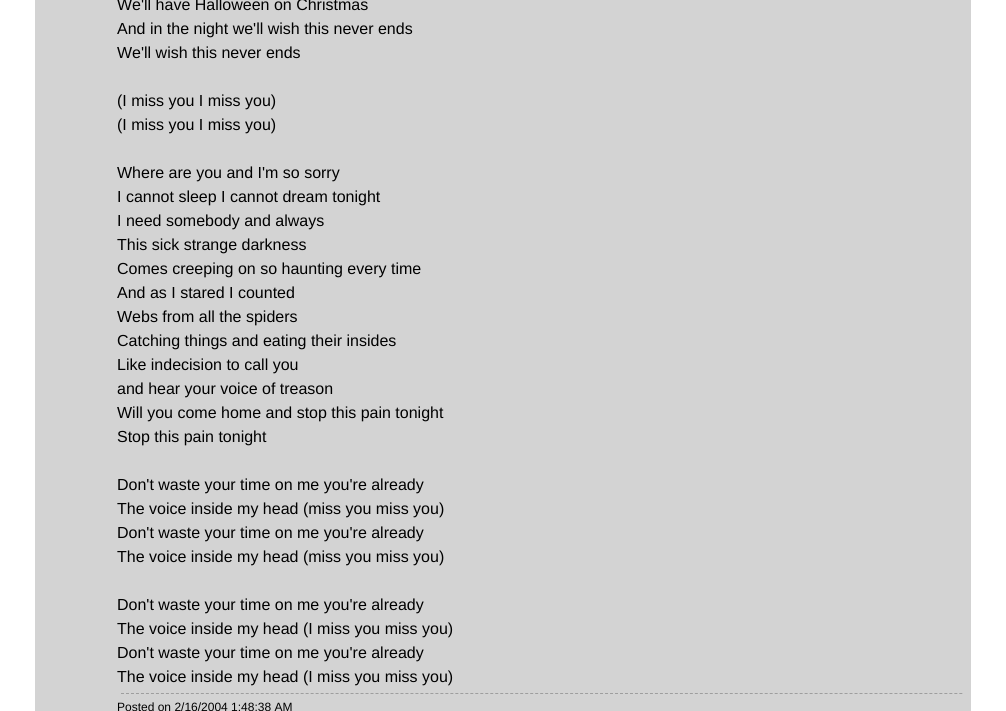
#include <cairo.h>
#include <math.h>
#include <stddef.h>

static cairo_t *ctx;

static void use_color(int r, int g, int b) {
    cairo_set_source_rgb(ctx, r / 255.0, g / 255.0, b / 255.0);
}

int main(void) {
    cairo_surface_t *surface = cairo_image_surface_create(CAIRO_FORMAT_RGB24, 1006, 711);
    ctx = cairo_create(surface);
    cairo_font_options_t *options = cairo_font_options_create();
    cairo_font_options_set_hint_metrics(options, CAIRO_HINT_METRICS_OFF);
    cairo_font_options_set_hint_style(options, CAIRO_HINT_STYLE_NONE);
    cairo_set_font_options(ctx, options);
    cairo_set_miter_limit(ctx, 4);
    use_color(255, 255, 255);
    cairo_paint(ctx);
    use_color(211, 211, 211);
    cairo_rectangle(ctx, 35, 0, 936, 711);
    cairo_fill(ctx);
    cairo_select_font_face(ctx, "Liberation Sans", CAIRO_FONT_SLANT_NORMAL, CAIRO_FONT_WEIGHT_NORMAL);
    cairo_set_font_size(ctx, 16);
    use_color(0, 0, 0);
    cairo_move_to(ctx, 117, 10);
    cairo_show_text(ctx, "We'll have Halloween on Christmas");
    cairo_move_to(ctx, 117, 34);
    cairo_show_text(ctx, "And in the night we'll wish this never ends");
    cairo_move_to(ctx, 117, 58);
    cairo_show_text(ctx, "We'll wish this never ends");
    cairo_move_to(ctx, 117, 106);
    cairo_show_text(ctx, "(I miss you I miss you)");
    cairo_move_to(ctx, 117, 130);
    cairo_show_text(ctx, "(I miss you I miss you)");
    cairo_move_to(ctx, 117, 178);
    cairo_show_text(ctx, "Where are you and I'm so sorry");
    cairo_move_to(ctx, 117, 202);
    cairo_show_text(ctx, "I cannot sleep I cannot dream tonight");
    cairo_move_to(ctx, 117, 226);
    cairo_show_text(ctx, "I need somebody and always");
    cairo_move_to(ctx, 117, 250);
    cairo_show_text(ctx, "This sick strange darkness");
    cairo_move_to(ctx, 117, 274);
    cairo_show_text(ctx, "Comes creeping on so haunting every time");
    cairo_move_to(ctx, 117, 298);
    cairo_show_text(ctx, "And as I stared I counted");
    cairo_move_to(ctx, 117, 322);
    cairo_show_text(ctx, "Webs from all the spiders");
    cairo_move_to(ctx, 117, 346);
    cairo_show_text(ctx, "Catching things and eating their insides");
    cairo_move_to(ctx, 117, 370);
    cairo_show_text(ctx, "Like indecision to call you");
    cairo_move_to(ctx, 117, 394);
    cairo_show_text(ctx, "and hear your voice of treason");
    cairo_move_to(ctx, 117, 418);
    cairo_show_text(ctx, "Will you come home and stop this pain tonight");
    cairo_move_to(ctx, 117, 442);
    cairo_show_text(ctx, "Stop this pain tonight");
    cairo_move_to(ctx, 117, 490);
    cairo_show_text(ctx, "Don't waste your time on me you're already");
    cairo_move_to(ctx, 117, 514);
    cairo_show_text(ctx, "The voice inside my head (miss you miss you)");
    cairo_move_to(ctx, 117, 538);
    cairo_show_text(ctx, "Don't waste your time on me you're already");
    cairo_move_to(ctx, 117, 562);
    cairo_show_text(ctx, "The voice inside my head (miss you miss you)");
    cairo_move_to(ctx, 117, 610);
    cairo_show_text(ctx, "Don't waste your time on me you're already");
    cairo_move_to(ctx, 117, 634);
    cairo_show_text(ctx, "The voice inside my head (I miss you miss you)");
    cairo_move_to(ctx, 117, 658);
    cairo_show_text(ctx, "Don't waste your time on me you're already");
    cairo_move_to(ctx, 117, 682);
    cairo_show_text(ctx, "The voice inside my head (I miss you miss you)");
    cairo_new_path(ctx);
    cairo_move_to(ctx, 121, 693.5);
    cairo_line_to(ctx, 963, 693.5);
    use_color(158, 158, 158);
    cairo_set_line_width(ctx, 1);
    cairo_set_dash(ctx, (double[]){3, 1.99}, 2, 0);
    cairo_stroke(ctx);
    cairo_set_font_size(ctx, 12);
    use_color(0, 0, 0);
    cairo_move_to(ctx, 117, 711);
    cairo_show_text(ctx, "Posted on 2/16/2004 1:48:38 AM");
    cairo_surface_write_to_png(surface, "result.png");
    cairo_font_options_destroy(options);
    cairo_destroy(ctx);
    cairo_surface_destroy(surface);
    return 0;
}
